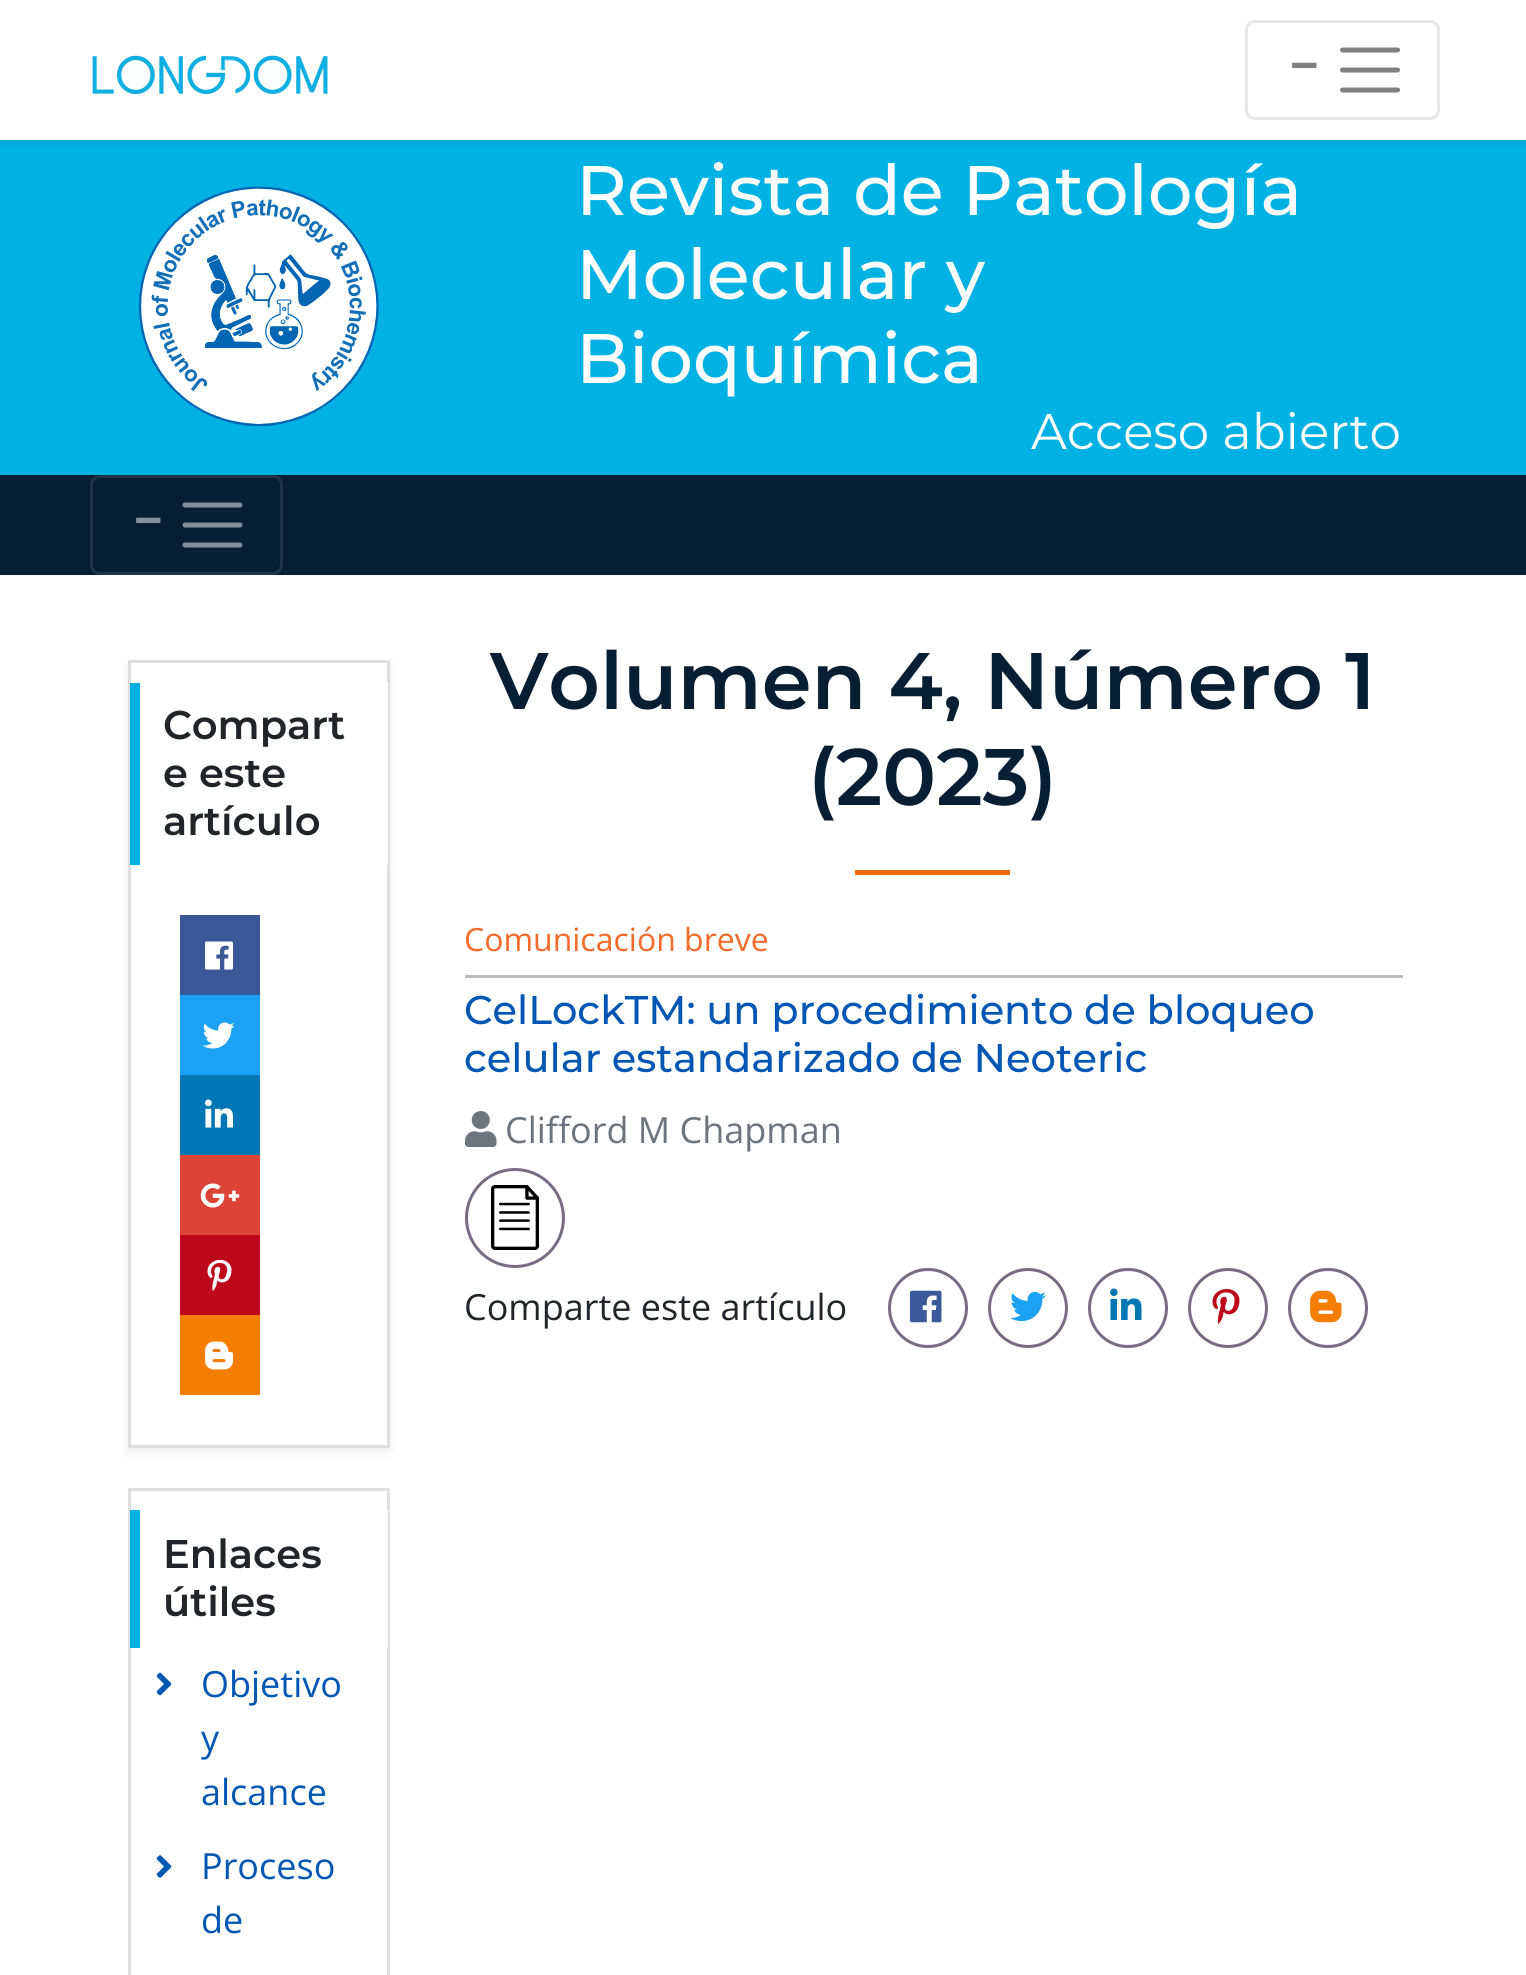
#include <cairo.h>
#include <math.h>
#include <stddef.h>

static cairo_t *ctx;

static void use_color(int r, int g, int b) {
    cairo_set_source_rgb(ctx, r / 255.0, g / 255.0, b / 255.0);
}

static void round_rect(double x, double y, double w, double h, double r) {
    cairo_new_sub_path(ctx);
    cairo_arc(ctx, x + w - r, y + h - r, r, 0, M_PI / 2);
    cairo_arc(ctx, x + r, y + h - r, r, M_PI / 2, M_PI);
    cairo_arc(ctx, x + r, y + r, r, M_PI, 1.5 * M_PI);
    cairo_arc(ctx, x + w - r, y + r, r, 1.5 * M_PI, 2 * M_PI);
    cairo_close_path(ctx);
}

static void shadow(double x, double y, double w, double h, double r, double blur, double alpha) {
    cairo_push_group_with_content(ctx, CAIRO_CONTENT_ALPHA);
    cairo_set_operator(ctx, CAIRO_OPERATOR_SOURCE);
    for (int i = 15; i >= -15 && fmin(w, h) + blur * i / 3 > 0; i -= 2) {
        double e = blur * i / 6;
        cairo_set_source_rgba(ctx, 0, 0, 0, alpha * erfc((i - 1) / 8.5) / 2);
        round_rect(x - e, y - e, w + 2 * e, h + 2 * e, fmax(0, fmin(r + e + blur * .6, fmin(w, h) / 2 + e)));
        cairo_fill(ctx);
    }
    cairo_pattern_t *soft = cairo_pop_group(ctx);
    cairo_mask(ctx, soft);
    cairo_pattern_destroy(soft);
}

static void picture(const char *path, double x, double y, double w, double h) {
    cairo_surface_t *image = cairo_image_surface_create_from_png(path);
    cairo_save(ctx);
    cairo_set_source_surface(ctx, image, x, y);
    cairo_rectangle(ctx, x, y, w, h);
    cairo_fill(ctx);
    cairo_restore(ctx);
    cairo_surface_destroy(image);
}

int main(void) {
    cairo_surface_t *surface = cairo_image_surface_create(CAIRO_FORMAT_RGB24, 1526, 1975);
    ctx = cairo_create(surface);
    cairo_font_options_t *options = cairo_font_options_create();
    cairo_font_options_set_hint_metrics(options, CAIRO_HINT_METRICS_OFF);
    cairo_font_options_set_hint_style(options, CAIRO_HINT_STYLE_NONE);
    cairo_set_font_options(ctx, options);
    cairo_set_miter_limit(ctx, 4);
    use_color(255, 255, 255);
    cairo_paint(ctx);
    use_color(0, 177, 228);
    cairo_rectangle(ctx, 0, 140, 1526, 335);
    cairo_fill(ctx);
    cairo_save(ctx);
    cairo_rectangle(ctx, 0, 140, 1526, 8);
    cairo_clip(ctx);
    use_color(0, 0, 0);
    shadow(0, 5, 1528, 140, 0, 5, 0.07);
    cairo_restore(ctx);
    picture("img1.png", 92, 55, 236, 40);
    round_rect(1246.5, 21.5, 192, 97, 8.5);
    use_color(230, 230, 230);
    cairo_set_line_width(ctx, 3);
    cairo_stroke(ctx);
    cairo_select_font_face(ctx, "Open Sans", CAIRO_FONT_SLANT_NORMAL, CAIRO_FONT_WEIGHT_BOLD);
    cairo_set_font_size(ctx, 50);
    use_color(128, 128, 128);
    cairo_move_to(ctx, 1290, 83);
    cairo_show_text(ctx, "−");
    cairo_new_path(ctx);
    cairo_move_to(ctx, 1342.5, 50);
    cairo_line_to(ctx, 1397.5, 50);
    cairo_move_to(ctx, 1342.5, 70);
    cairo_line_to(ctx, 1397.5, 70);
    cairo_move_to(ctx, 1342.5, 90);
    cairo_line_to(ctx, 1397.5, 90);
    cairo_set_line_width(ctx, 5);
    cairo_set_line_cap(ctx, CAIRO_LINE_CAP_ROUND);
    cairo_stroke(ctx);
    picture("img2.png", 138, 186, 241, 241);
    cairo_select_font_face(ctx, "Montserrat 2 Thin", CAIRO_FONT_SLANT_NORMAL, CAIRO_FONT_WEIGHT_NORMAL);
    cairo_set_font_size(ctx, 70);
    use_color(255, 255, 255);
    cairo_move_to(ctx, 576, 215);
    cairo_show_text(ctx, "Revista de Patología");
    cairo_move_to(ctx, 576, 299);
    cairo_show_text(ctx, "Molecular y");
    cairo_move_to(ctx, 576, 383);
    cairo_show_text(ctx, "Bioquímica");
    cairo_select_font_face(ctx, "Montserrat Thin", CAIRO_FONT_SLANT_NORMAL, CAIRO_FONT_WEIGHT_NORMAL);
    cairo_set_font_size(ctx, 50);
    cairo_move_to(ctx, 1031, 449);
    cairo_show_text(ctx, "Acceso abierto");
    use_color(7, 30, 51);
    cairo_rectangle(ctx, 0, 475, 1526, 100);
    cairo_fill(ctx);
    round_rect(91.5, 476.5, 190, 97, 8.5);
    use_color(32, 53, 71);
    cairo_set_line_width(ctx, 3);
    cairo_set_line_cap(ctx, CAIRO_LINE_CAP_BUTT);
    cairo_stroke(ctx);
    cairo_select_font_face(ctx, "Open Sans", CAIRO_FONT_SLANT_NORMAL, CAIRO_FONT_WEIGHT_BOLD);
    use_color(131, 143, 153);
    cairo_move_to(ctx, 134, 538);
    cairo_show_text(ctx, "−");
    cairo_new_path(ctx);
    cairo_move_to(ctx, 185, 505);
    cairo_line_to(ctx, 240, 505);
    cairo_move_to(ctx, 185, 525);
    cairo_line_to(ctx, 240, 525);
    cairo_move_to(ctx, 185, 545);
    cairo_line_to(ctx, 240, 545);
    cairo_set_line_width(ctx, 5);
    cairo_set_line_cap(ctx, CAIRO_LINE_CAP_ROUND);
    cairo_stroke(ctx);
    use_color(0, 0, 0);
    shadow(128, 665, 262, 788, 0, 5, 0.07);
    use_color(255, 255, 255);
    cairo_rectangle(ctx, 129.5, 661.5, 259, 785);
    cairo_fill_preserve(ctx);
    use_color(223, 223, 223);
    cairo_set_line_width(ctx, 3);
    cairo_set_line_cap(ctx, CAIRO_LINE_CAP_BUTT);
    cairo_stroke(ctx);
    use_color(255, 255, 255);
    cairo_rectangle(ctx, 387, 683, 1, 182);
    cairo_fill(ctx);
    use_color(0, 177, 228);
    cairo_rectangle(ctx, 130, 683, 10, 182);
    cairo_fill(ctx);
    cairo_select_font_face(ctx, "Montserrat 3 Thin", CAIRO_FONT_SLANT_NORMAL, CAIRO_FONT_WEIGHT_NORMAL);
    cairo_set_font_size(ctx, 40);
    use_color(33, 37, 41);
    cairo_move_to(ctx, 163, 739);
    cairo_show_text(ctx, "Compart");
    cairo_move_to(ctx, 163, 787);
    cairo_show_text(ctx, "e este");
    cairo_move_to(ctx, 163, 835);
    cairo_show_text(ctx, "artículo");
    use_color(59, 89, 152);
    cairo_rectangle(ctx, 180, 915, 80, 80);
    cairo_fill(ctx);
    picture("img3.png", 205, 941, 28, 29);
    use_color(29, 161, 242);
    cairo_rectangle(ctx, 180, 995, 80, 80);
    cairo_fill(ctx);
    picture("img4.png", 202, 1022, 33, 27);
    use_color(0, 119, 181);
    cairo_rectangle(ctx, 180, 1075, 80, 80);
    cairo_fill(ctx);
    picture("img5.png", 205, 1099, 28, 29);
    use_color(219, 68, 55);
    cairo_rectangle(ctx, 180, 1155, 80, 80);
    cairo_fill(ctx);
    picture("img6.png", 200, 1183, 40, 25);
    use_color(189, 8, 28);
    cairo_rectangle(ctx, 180, 1235, 80, 80);
    cairo_fill(ctx);
    picture("img7.png", 207, 1259, 25, 33);
    use_color(245, 125, 0);
    cairo_rectangle(ctx, 180, 1315, 80, 80);
    cairo_fill(ctx);
    picture("img8.png", 205, 1341, 29, 29);
    cairo_rectangle(ctx, 129.5, 1489.5, 259, 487);
    use_color(223, 223, 223);
    cairo_stroke(ctx);
    use_color(255, 255, 255);
    cairo_rectangle(ctx, 387, 1510, 1, 138);
    cairo_fill(ctx);
    use_color(0, 177, 228);
    cairo_rectangle(ctx, 130, 1510, 10, 138);
    cairo_fill(ctx);
    use_color(33, 37, 41);
    cairo_move_to(ctx, 163, 1568);
    cairo_show_text(ctx, "Enlaces");
    cairo_move_to(ctx, 163, 1616);
    cairo_show_text(ctx, "útiles");
    picture("img9.png", 156, 1672, 16, 24);
    cairo_select_font_face(ctx, "Open Sans", CAIRO_FONT_SLANT_NORMAL, CAIRO_FONT_WEIGHT_NORMAL);
    cairo_set_font_size(ctx, 36);
    use_color(0, 86, 179);
    cairo_move_to(ctx, 201, 1697);
    cairo_show_text(ctx, "Objetivo");
    cairo_move_to(ctx, 201, 1751);
    cairo_show_text(ctx, "y");
    cairo_move_to(ctx, 201, 1805);
    cairo_show_text(ctx, "alcance");
    picture("img10.png", 156, 1855, 16, 23);
    cairo_move_to(ctx, 201, 1879);
    cairo_show_text(ctx, "Proceso");
    cairo_move_to(ctx, 201, 1933);
    cairo_show_text(ctx, "de");
    cairo_select_font_face(ctx, "Montserrat 3 Thin", CAIRO_FONT_SLANT_NORMAL, CAIRO_FONT_WEIGHT_NORMAL);
    cairo_set_font_size(ctx, 80);
    use_color(7, 30, 51);
    cairo_move_to(ctx, 490, 709);
    cairo_show_text(ctx, "Volumen 4, Número 1");
    cairo_move_to(ctx, 808, 805);
    cairo_show_text(ctx, "(2023)");
    use_color(239, 108, 0);
    cairo_rectangle(ctx, 855, 870, 155, 5);
    cairo_fill(ctx);
    use_color(189, 189, 189);
    cairo_rectangle(ctx, 465, 975, 938, 3);
    cairo_fill(ctx);
    cairo_select_font_face(ctx, "Open Sans", CAIRO_FONT_SLANT_NORMAL, CAIRO_FONT_WEIGHT_NORMAL);
    cairo_set_font_size(ctx, 32);
    use_color(246, 106, 41);
    cairo_move_to(ctx, 464, 951);
    cairo_show_text(ctx, "Comunicación breve");
    cairo_select_font_face(ctx, "Montserrat 2 Thin", CAIRO_FONT_SLANT_NORMAL, CAIRO_FONT_WEIGHT_NORMAL);
    cairo_set_font_size(ctx, 40);
    use_color(0, 86, 179);
    cairo_move_to(ctx, 464, 1024);
    cairo_show_text(ctx, "CelLockTM: un procedimiento de bloqueo");
    cairo_move_to(ctx, 464, 1072);
    cairo_show_text(ctx, "celular estandarizado de Neoteric");
    picture("img11.png", 465, 1111, 32, 36);
    cairo_select_font_face(ctx, "Open Sans", CAIRO_FONT_SLANT_NORMAL, CAIRO_FONT_WEIGHT_NORMAL);
    cairo_set_font_size(ctx, 36);
    use_color(108, 117, 125);
    cairo_move_to(ctx, 505, 1143);
    cairo_show_text(ctx, "Clifford M Chapman");
    cairo_new_path(ctx);
    cairo_arc(ctx, 515, 1218, 48.5, 0, 2 * M_PI);
    use_color(120, 107, 131);
    cairo_stroke(ctx);
    picture("img12.png", 490, 1185, 50, 65);
    use_color(33, 37, 41);
    cairo_move_to(ctx, 464, 1320);
    cairo_show_text(ctx, "Comparte este artículo");
    cairo_new_path(ctx);
    cairo_arc(ctx, 928, 1308, 38.5, 0, 2 * M_PI);
    use_color(120, 107, 131);
    cairo_stroke(ctx);
    picture("img13.png", 910, 1290, 32, 33);
    cairo_arc(ctx, 1028, 1308, 38.5, 0, 2 * M_PI);
    cairo_stroke(ctx);
    picture("img14.png", 1010, 1291, 36, 31);
    cairo_arc(ctx, 1128, 1308, 38.5, 0, 2 * M_PI);
    cairo_stroke(ctx);
    picture("img15.png", 1110, 1288, 32, 32);
    cairo_arc(ctx, 1228, 1308, 38.5, 0, 2 * M_PI);
    cairo_stroke(ctx);
    picture("img16.png", 1212, 1288, 28, 36);
    cairo_arc(ctx, 1328, 1308, 38.5, 0, 2 * M_PI);
    cairo_stroke(ctx);
    picture("img17.png", 1310, 1290, 32, 33);
    cairo_surface_write_to_png(surface, "result.png");
    cairo_font_options_destroy(options);
    cairo_destroy(ctx);
    cairo_surface_destroy(surface);
    return 0;
}
